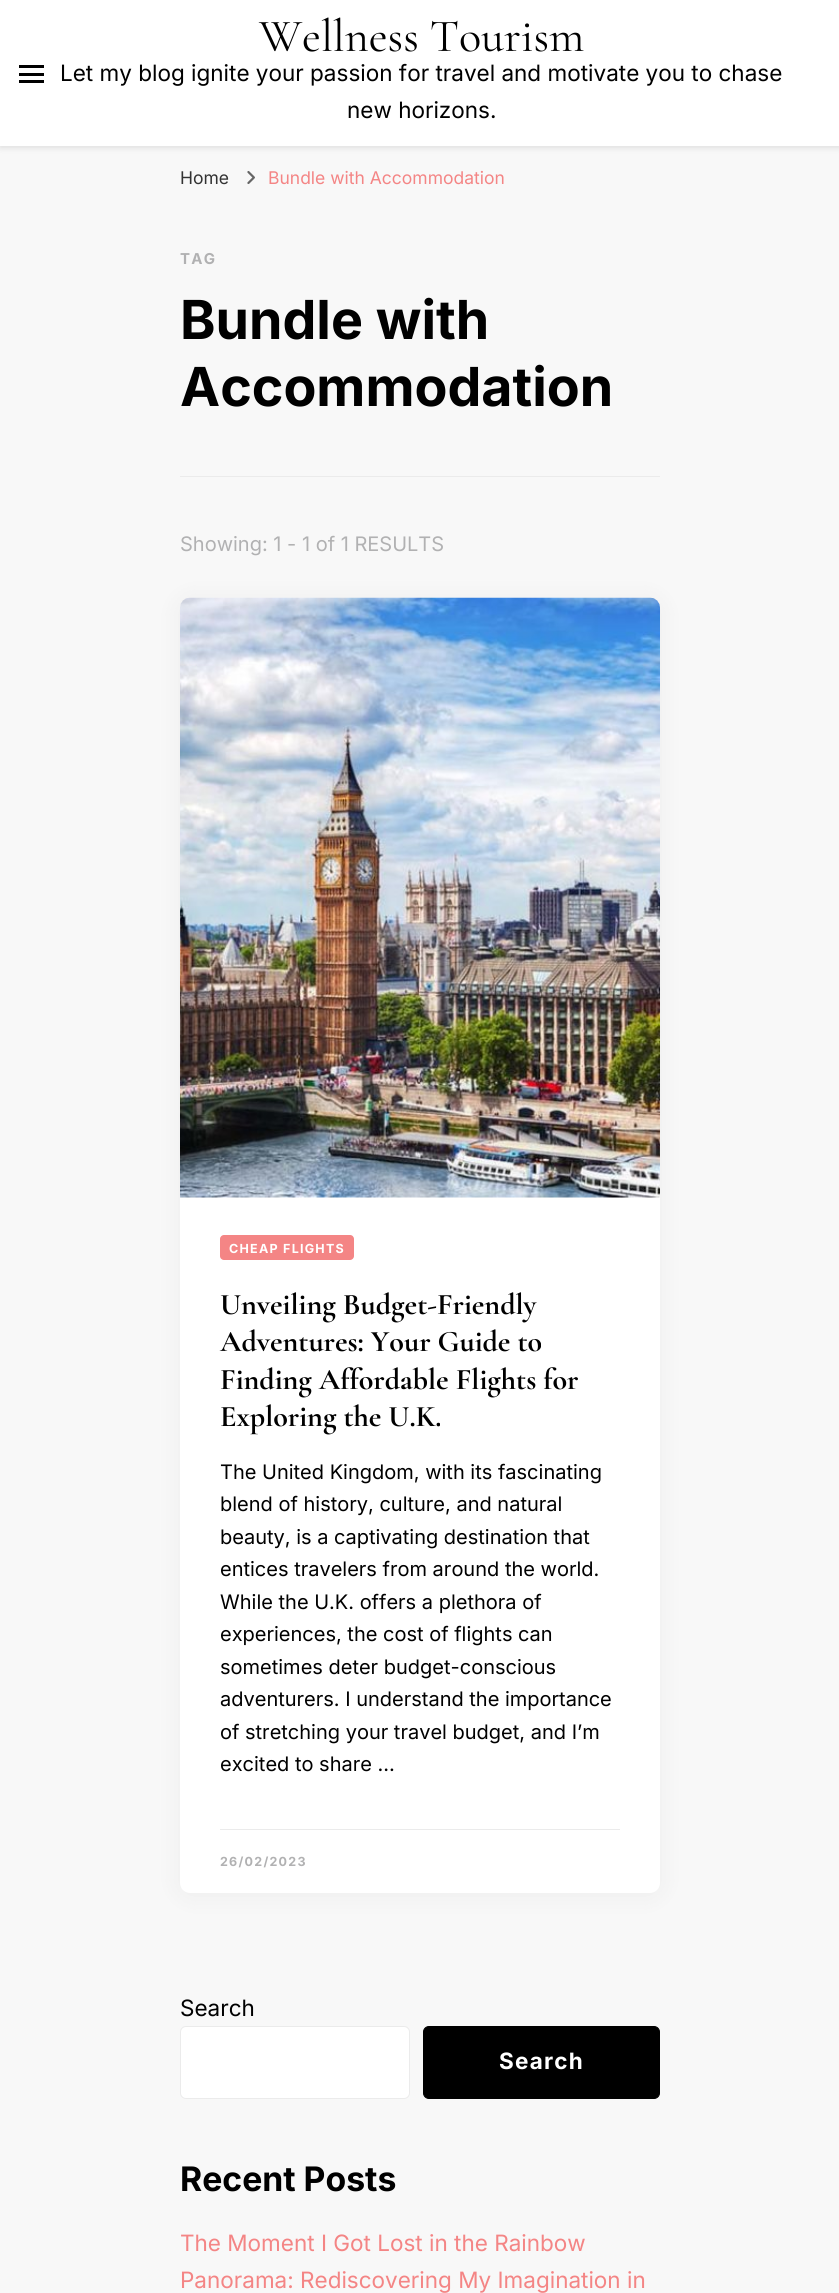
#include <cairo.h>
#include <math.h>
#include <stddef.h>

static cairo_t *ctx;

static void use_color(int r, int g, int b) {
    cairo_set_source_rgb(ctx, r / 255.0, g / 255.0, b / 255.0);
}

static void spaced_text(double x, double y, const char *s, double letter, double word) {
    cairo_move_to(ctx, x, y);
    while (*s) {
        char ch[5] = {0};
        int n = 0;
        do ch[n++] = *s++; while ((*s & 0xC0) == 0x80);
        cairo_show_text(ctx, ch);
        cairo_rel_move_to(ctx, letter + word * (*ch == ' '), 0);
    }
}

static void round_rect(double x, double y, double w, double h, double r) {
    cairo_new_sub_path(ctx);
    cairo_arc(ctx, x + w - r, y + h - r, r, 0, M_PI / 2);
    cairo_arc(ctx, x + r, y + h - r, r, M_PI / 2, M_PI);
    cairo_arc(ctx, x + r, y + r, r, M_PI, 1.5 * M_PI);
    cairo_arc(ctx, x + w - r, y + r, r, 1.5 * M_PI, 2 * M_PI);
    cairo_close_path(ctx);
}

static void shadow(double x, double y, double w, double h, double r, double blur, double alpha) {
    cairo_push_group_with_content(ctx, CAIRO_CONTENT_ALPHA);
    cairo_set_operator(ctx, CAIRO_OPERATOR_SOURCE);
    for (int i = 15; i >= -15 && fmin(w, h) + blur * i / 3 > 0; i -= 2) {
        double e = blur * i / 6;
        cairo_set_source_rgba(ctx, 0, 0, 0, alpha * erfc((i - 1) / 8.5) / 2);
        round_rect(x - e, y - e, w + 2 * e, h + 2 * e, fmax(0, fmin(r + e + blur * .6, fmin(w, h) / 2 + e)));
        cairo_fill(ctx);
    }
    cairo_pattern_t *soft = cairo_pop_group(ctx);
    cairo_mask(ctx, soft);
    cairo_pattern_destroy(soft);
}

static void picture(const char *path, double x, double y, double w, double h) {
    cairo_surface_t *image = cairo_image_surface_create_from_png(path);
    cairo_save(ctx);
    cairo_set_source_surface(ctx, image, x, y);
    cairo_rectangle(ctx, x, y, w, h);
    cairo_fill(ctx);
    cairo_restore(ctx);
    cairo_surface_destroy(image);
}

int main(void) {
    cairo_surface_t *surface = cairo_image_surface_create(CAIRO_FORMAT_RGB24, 839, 2293);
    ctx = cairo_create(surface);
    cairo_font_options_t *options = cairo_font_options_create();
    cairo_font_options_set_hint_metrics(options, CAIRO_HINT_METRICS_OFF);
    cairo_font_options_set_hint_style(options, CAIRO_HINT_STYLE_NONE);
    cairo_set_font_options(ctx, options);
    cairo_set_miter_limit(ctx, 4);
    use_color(248, 248, 248);
    cairo_paint(ctx);
    use_color(0, 0, 0);
    shadow(0, 1, 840, 147, 0, 3, 0.1);
    use_color(255, 255, 255);
    cairo_rectangle(ctx, 0, 0, 839, 146);
    cairo_fill(ctx);
    use_color(0, 0, 0);
    cairo_rectangle(ctx, 19, 65, 25, 3);
    cairo_fill(ctx);
    cairo_rectangle(ctx, 19, 73, 25, 3);
    cairo_fill(ctx);
    cairo_rectangle(ctx, 19, 80, 25, 3);
    cairo_fill(ctx);
    cairo_select_font_face(ctx, "Cormorant Garamond", CAIRO_FONT_SLANT_NORMAL, CAIRO_FONT_WEIGHT_NORMAL);
    cairo_set_font_size(ctx, 46.25);
    cairo_move_to(ctx, 259, 51);
    cairo_show_text(ctx, "Wellness Tourism");
    cairo_select_font_face(ctx, "Inter", CAIRO_FONT_SLANT_NORMAL, CAIRO_FONT_WEIGHT_NORMAL);
    cairo_set_font_size(ctx, 22.5);
    cairo_move_to(ctx, 60, 81);
    cairo_show_text(ctx, "Let my blog ignite your passion for travel and motivate you to chase");
    cairo_move_to(ctx, 347, 118);
    cairo_show_text(ctx, "new horizons.");
    cairo_set_font_size(ctx, 17.5);
    use_color(51, 51, 51);
    cairo_move_to(ctx, 180, 184);
    cairo_show_text(ctx, "Home");
    picture("img1.png", 247, 171, 8, 13);
    use_color(244, 133, 133);
    cairo_move_to(ctx, 268, 184);
    cairo_show_text(ctx, "Bundle with Accommodation");
    use_color(235, 235, 235);
    cairo_rectangle(ctx, 180, 476, 480, 1);
    cairo_fill(ctx);
    cairo_select_font_face(ctx, "Inter", CAIRO_FONT_SLANT_NORMAL, CAIRO_FONT_WEIGHT_BOLD);
    cairo_set_font_size(ctx, 15);
    use_color(177, 177, 178);
    spaced_text(180, 264, "TAG", 1.25, 0);
    cairo_set_font_size(ctx, 53.75);
    use_color(0, 0, 0);
    cairo_move_to(ctx, 180, 339);
    cairo_show_text(ctx, "Bundle with");
    cairo_move_to(ctx, 180, 406);
    cairo_show_text(ctx, "Accommodation");
    cairo_select_font_face(ctx, "Inter", CAIRO_FONT_SLANT_NORMAL, CAIRO_FONT_WEIGHT_NORMAL);
    cairo_set_font_size(ctx, 20);
    use_color(177, 177, 178);
    cairo_move_to(ctx, 180, 551);
    cairo_show_text(ctx, "Showing: 1 - 1 of 1 RESULTS");
    use_color(0, 0, 0);
    shadow(180, 600, 480, 1295, 10, 12.5, 0.05);
    use_color(255, 255, 255);
    round_rect(180, 598, 480, 1295, 10);
    cairo_fill(ctx);
    picture("img2.png", 180, 597, 480, 601);
    use_color(244, 133, 133);
    round_rect(220, 1235, 134, 25, 4);
    cairo_fill(ctx);
    cairo_select_font_face(ctx, "Inter", CAIRO_FONT_SLANT_NORMAL, CAIRO_FONT_WEIGHT_BOLD);
    cairo_set_font_size(ctx, 12.5);
    use_color(255, 255, 255);
    spaced_text(229, 1253, "CHEAP FLIGHTS", 1.25, 0);
    cairo_select_font_face(ctx, "Cormorant Garamond", CAIRO_FONT_SLANT_NORMAL, CAIRO_FONT_WEIGHT_BOLD);
    cairo_set_font_size(ctx, 30);
    use_color(0, 0, 0);
    cairo_move_to(ctx, 220, 1314);
    cairo_show_text(ctx, "Unveiling Budget-Friendly");
    cairo_move_to(ctx, 220, 1351);
    cairo_show_text(ctx, "Adventures: Your Guide to");
    cairo_move_to(ctx, 220, 1389);
    cairo_show_text(ctx, "Finding Affordable Flights for");
    cairo_move_to(ctx, 220, 1426);
    cairo_show_text(ctx, "Exploring the U.K.");
    cairo_select_font_face(ctx, "Inter", CAIRO_FONT_SLANT_NORMAL, CAIRO_FONT_WEIGHT_NORMAL);
    cairo_set_font_size(ctx, 20);
    cairo_move_to(ctx, 220, 1479);
    cairo_show_text(ctx, "The United Kingdom, with its fascinating");
    cairo_move_to(ctx, 220, 1511);
    cairo_show_text(ctx, "blend of history, culture, and natural");
    cairo_move_to(ctx, 220, 1544);
    cairo_show_text(ctx, "beauty, is a captivating destination that");
    cairo_move_to(ctx, 220, 1576);
    cairo_show_text(ctx, "entices travelers from around the world.");
    cairo_move_to(ctx, 220, 1609);
    cairo_show_text(ctx, "While the U.K. offers a plethora of");
    cairo_move_to(ctx, 220, 1641);
    cairo_show_text(ctx, "experiences, the cost of flights can");
    cairo_move_to(ctx, 220, 1674);
    cairo_show_text(ctx, "sometimes deter budget-conscious");
    cairo_move_to(ctx, 220, 1706);
    cairo_show_text(ctx, "adventurers. I understand the importance");
    cairo_move_to(ctx, 220, 1739);
    cairo_show_text(ctx, "of stretching your travel budget, and I’m");
    cairo_move_to(ctx, 220, 1771);
    cairo_show_text(ctx, "excited to share …");
    use_color(235, 235, 235);
    cairo_rectangle(ctx, 220, 1829, 400, 1);
    cairo_fill(ctx);
    cairo_select_font_face(ctx, "Inter", CAIRO_FONT_SLANT_NORMAL, CAIRO_FONT_WEIGHT_BOLD);
    cairo_set_font_size(ctx, 12.5);
    use_color(177, 177, 178);
    spaced_text(220, 1866, "26/02/2023", 1.25, 0);
    cairo_select_font_face(ctx, "Inter", CAIRO_FONT_SLANT_NORMAL, CAIRO_FONT_WEIGHT_NORMAL);
    cairo_set_font_size(ctx, 22.5);
    use_color(0, 0, 0);
    cairo_move_to(ctx, 180, 2016);
    cairo_show_text(ctx, "Search");
    use_color(255, 255, 255);
    round_rect(180.5, 2026.5, 229, 72, 5.5);
    cairo_fill_preserve(ctx);
    use_color(235, 235, 235);
    cairo_set_line_width(ctx, 1);
    cairo_stroke(ctx);
    use_color(0, 0, 0);
    round_rect(423.5, 2026.5, 236, 72, 5.5);
    cairo_fill_preserve(ctx);
    cairo_stroke(ctx);
    cairo_select_font_face(ctx, "Inter", CAIRO_FONT_SLANT_NORMAL, CAIRO_FONT_WEIGHT_BOLD);
    use_color(255, 255, 255);
    spaced_text(499, 2069, "Search", 1.25, 0);
    cairo_set_font_size(ctx, 33.75);
    use_color(0, 0, 0);
    cairo_move_to(ctx, 180, 2191);
    cairo_show_text(ctx, "Recent Posts");
    cairo_select_font_face(ctx, "Inter", CAIRO_FONT_SLANT_NORMAL, CAIRO_FONT_WEIGHT_NORMAL);
    cairo_set_font_size(ctx, 22.5);
    use_color(244, 133, 133);
    cairo_move_to(ctx, 180, 2251);
    cairo_show_text(ctx, "The Moment I Got Lost in the Rainbow");
    cairo_move_to(ctx, 180, 2288);
    cairo_show_text(ctx, "Panorama: Rediscovering My Imagination in");
    cairo_surface_write_to_png(surface, "result.png");
    cairo_font_options_destroy(options);
    cairo_destroy(ctx);
    cairo_surface_destroy(surface);
    return 0;
}
